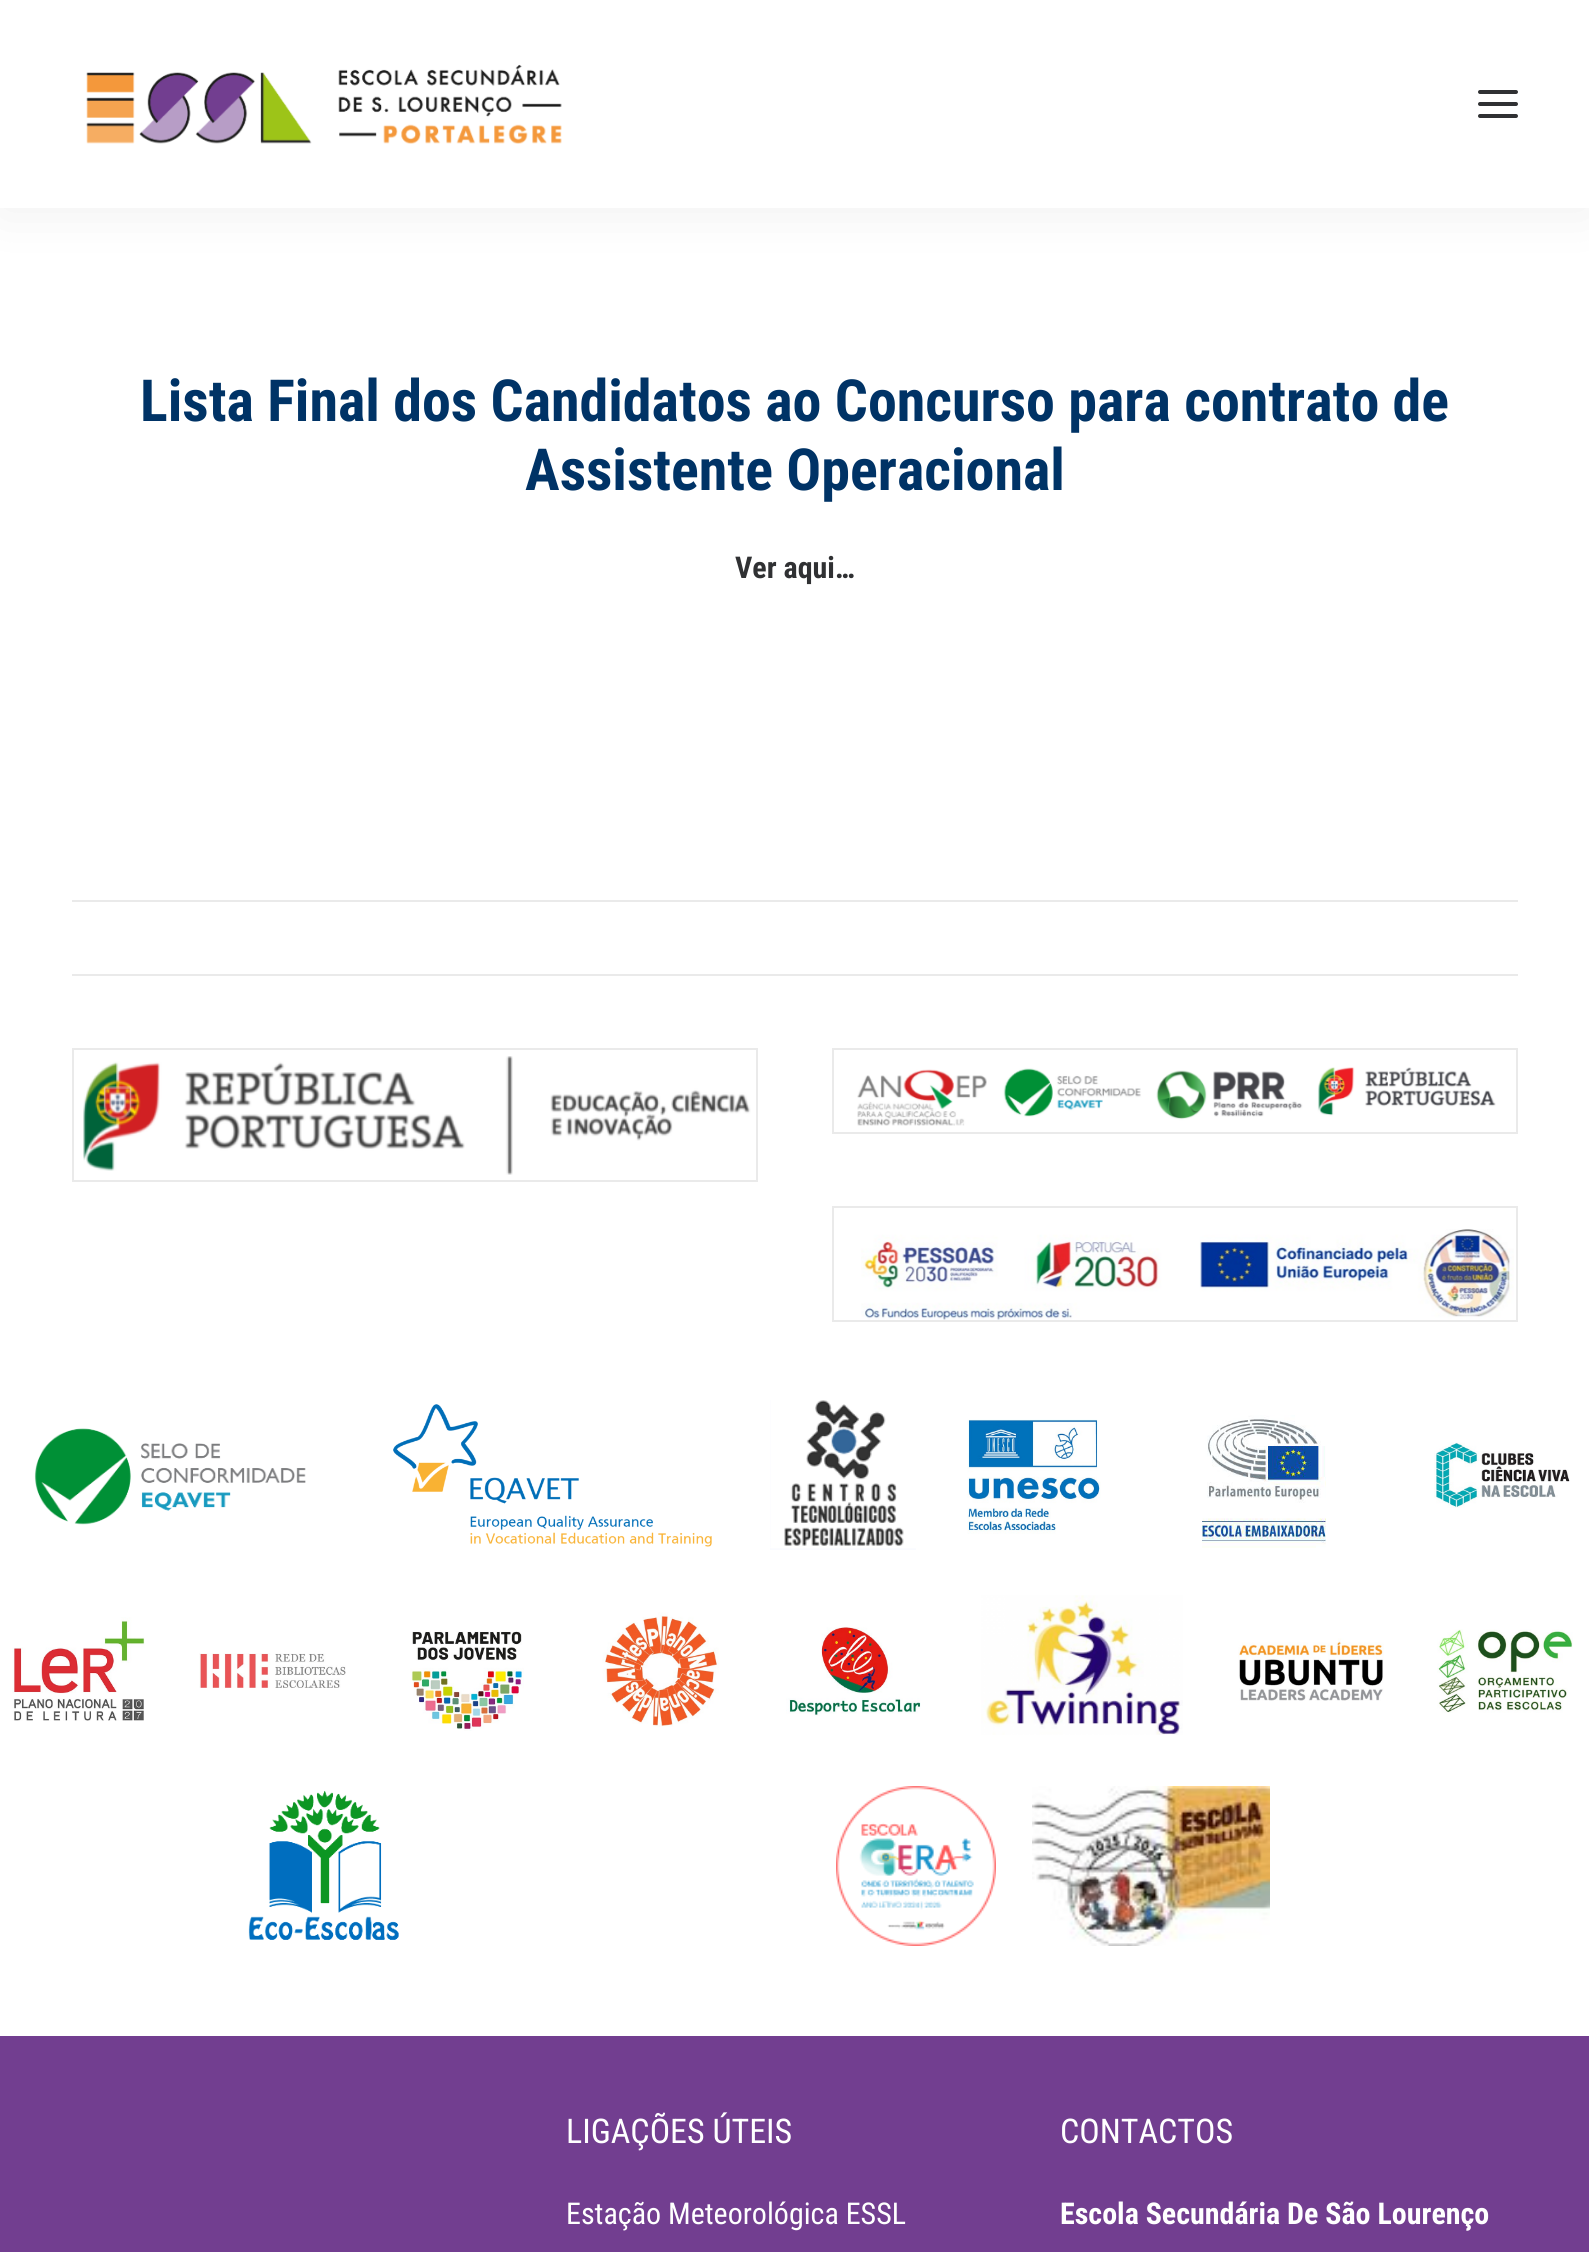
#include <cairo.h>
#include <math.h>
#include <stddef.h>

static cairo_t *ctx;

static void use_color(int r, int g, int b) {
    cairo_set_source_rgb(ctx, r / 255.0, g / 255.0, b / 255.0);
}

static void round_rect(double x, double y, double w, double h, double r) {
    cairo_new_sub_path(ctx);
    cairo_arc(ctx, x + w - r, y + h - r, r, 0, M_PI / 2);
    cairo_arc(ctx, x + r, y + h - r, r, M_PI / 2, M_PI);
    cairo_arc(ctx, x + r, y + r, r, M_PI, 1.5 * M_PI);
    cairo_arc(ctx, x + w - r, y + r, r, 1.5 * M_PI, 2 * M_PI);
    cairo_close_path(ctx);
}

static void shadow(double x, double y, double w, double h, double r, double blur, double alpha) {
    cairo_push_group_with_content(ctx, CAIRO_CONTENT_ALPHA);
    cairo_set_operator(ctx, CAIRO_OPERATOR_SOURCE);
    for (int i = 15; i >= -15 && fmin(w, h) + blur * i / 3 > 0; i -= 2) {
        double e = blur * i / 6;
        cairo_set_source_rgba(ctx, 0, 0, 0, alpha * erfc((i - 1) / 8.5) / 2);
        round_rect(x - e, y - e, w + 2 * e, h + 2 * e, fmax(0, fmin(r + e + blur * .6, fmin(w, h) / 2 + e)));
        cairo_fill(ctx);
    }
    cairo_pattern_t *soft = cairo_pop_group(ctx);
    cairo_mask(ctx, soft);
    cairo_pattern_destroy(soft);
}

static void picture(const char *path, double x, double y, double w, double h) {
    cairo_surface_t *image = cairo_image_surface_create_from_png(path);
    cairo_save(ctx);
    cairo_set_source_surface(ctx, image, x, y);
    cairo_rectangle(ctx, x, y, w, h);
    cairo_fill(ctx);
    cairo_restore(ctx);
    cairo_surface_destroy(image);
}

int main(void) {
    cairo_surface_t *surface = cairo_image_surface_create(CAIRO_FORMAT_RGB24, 1589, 2252);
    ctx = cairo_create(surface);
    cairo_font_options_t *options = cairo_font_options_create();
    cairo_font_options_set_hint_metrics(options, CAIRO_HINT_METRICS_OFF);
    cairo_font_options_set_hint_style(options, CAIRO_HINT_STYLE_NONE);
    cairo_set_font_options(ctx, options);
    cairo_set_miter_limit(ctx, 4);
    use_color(255, 255, 255);
    cairo_paint(ctx);
    use_color(0, 0, 0);
    shadow(0, 0, 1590, 208, 0, 30, 0.07);
    use_color(255, 255, 255);
    cairo_rectangle(ctx, 0, 0, 1589, 208);
    cairo_fill(ctx);
    picture("img1.png", 86, 64, 476, 80);
    use_color(48, 49, 51);
    round_rect(1478, 102, 40, 4, 2);
    cairo_fill(ctx);
    round_rect(1478, 90, 40, 4, 2);
    cairo_fill(ctx);
    round_rect(1478, 114, 40, 4, 2);
    cairo_fill(ctx);
    cairo_select_font_face(ctx, "Roboto Condensed", CAIRO_FONT_SLANT_NORMAL, CAIRO_FONT_WEIGHT_BOLD);
    cairo_set_font_size(ctx, 58);
    use_color(0, 51, 102);
    cairo_move_to(ctx, 140, 421);
    cairo_show_text(ctx, "Lista Final dos Candidatos ao Concurso para contrato de");
    cairo_move_to(ctx, 525, 490);
    cairo_show_text(ctx, "Assistente Operacional");
    cairo_set_font_size(ctx, 30);
    use_color(48, 49, 51);
    cairo_move_to(ctx, 735, 578);
    cairo_show_text(ctx, "Ver aqui…");
    use_color(234, 234, 234);
    cairo_rectangle(ctx, 72, 900, 1446, 2);
    cairo_fill(ctx);
    cairo_rectangle(ctx, 72, 974, 1446, 2);
    cairo_fill(ctx);
    cairo_rectangle(ctx, 73, 1049, 684, 132);
    cairo_stroke(ctx);
    picture("img2.png", 83, 1056, 668, 119);
    cairo_rectangle(ctx, 833, 1049, 684, 84);
    cairo_stroke(ctx);
    picture("img3.png", 857, 1067, 639, 59);
    cairo_rectangle(ctx, 833, 1207, 684, 114);
    cairo_stroke(ctx);
    picture("img4.png", 861, 1229, 653, 91);
    picture("img5.png", 34, 1428, 272, 97);
    picture("img6.png", 393, 1404, 319, 143);
    picture("img7.png", 770, 1400, 146, 150);
    picture("img8.png", 967, 1419, 134, 115);
    picture("img9.png", 1202, 1415, 124, 133);
    picture("img10.png", 1434, 1442, 136, 66);
    picture("img11.png", 12, 1617, 133, 104);
    picture("img12.png", 199, 1653, 147, 35);
    picture("img13.png", 410, 1631, 114, 100);
    picture("img14.png", 602, 1612, 117, 115);
    picture("img15.png", 786, 1627, 135, 89);
    picture("img16.png", 981, 1595, 202, 140);
    picture("img17.png", 1238, 1638, 146, 63);
    picture("img18.png", 1437, 1629, 136, 84);
    picture("img19.png", 248, 1790, 151, 150);
    picture("img20.png", 836, 1786, 160, 160);
    picture("img21.png", 1032, 1786, 238, 160);
    use_color(114, 62, 144);
    cairo_rectangle(ctx, 0, 2036, 1589, 216);
    cairo_fill(ctx);
    cairo_select_font_face(ctx, "Roboto Condensed", CAIRO_FONT_SLANT_NORMAL, CAIRO_FONT_WEIGHT_NORMAL);
    cairo_set_font_size(ctx, 34);
    use_color(255, 255, 255);
    cairo_move_to(ctx, 566, 2143);
    cairo_show_text(ctx, "LIGAÇÕES ÚTEIS");
    cairo_set_font_size(ctx, 30);
    cairo_move_to(ctx, 566, 2224);
    cairo_show_text(ctx, "Estação Meteorológica ESSL");
    cairo_set_font_size(ctx, 34);
    cairo_move_to(ctx, 1060, 2143);
    cairo_show_text(ctx, "CONTACTOS");
    cairo_select_font_face(ctx, "Roboto Condensed", CAIRO_FONT_SLANT_NORMAL, CAIRO_FONT_WEIGHT_BOLD);
    cairo_set_font_size(ctx, 30);
    cairo_move_to(ctx, 1060, 2224);
    cairo_show_text(ctx, "Escola Secundária De São Lourenço");
    cairo_surface_write_to_png(surface, "result.png");
    cairo_font_options_destroy(options);
    cairo_destroy(ctx);
    cairo_surface_destroy(surface);
    return 0;
}
